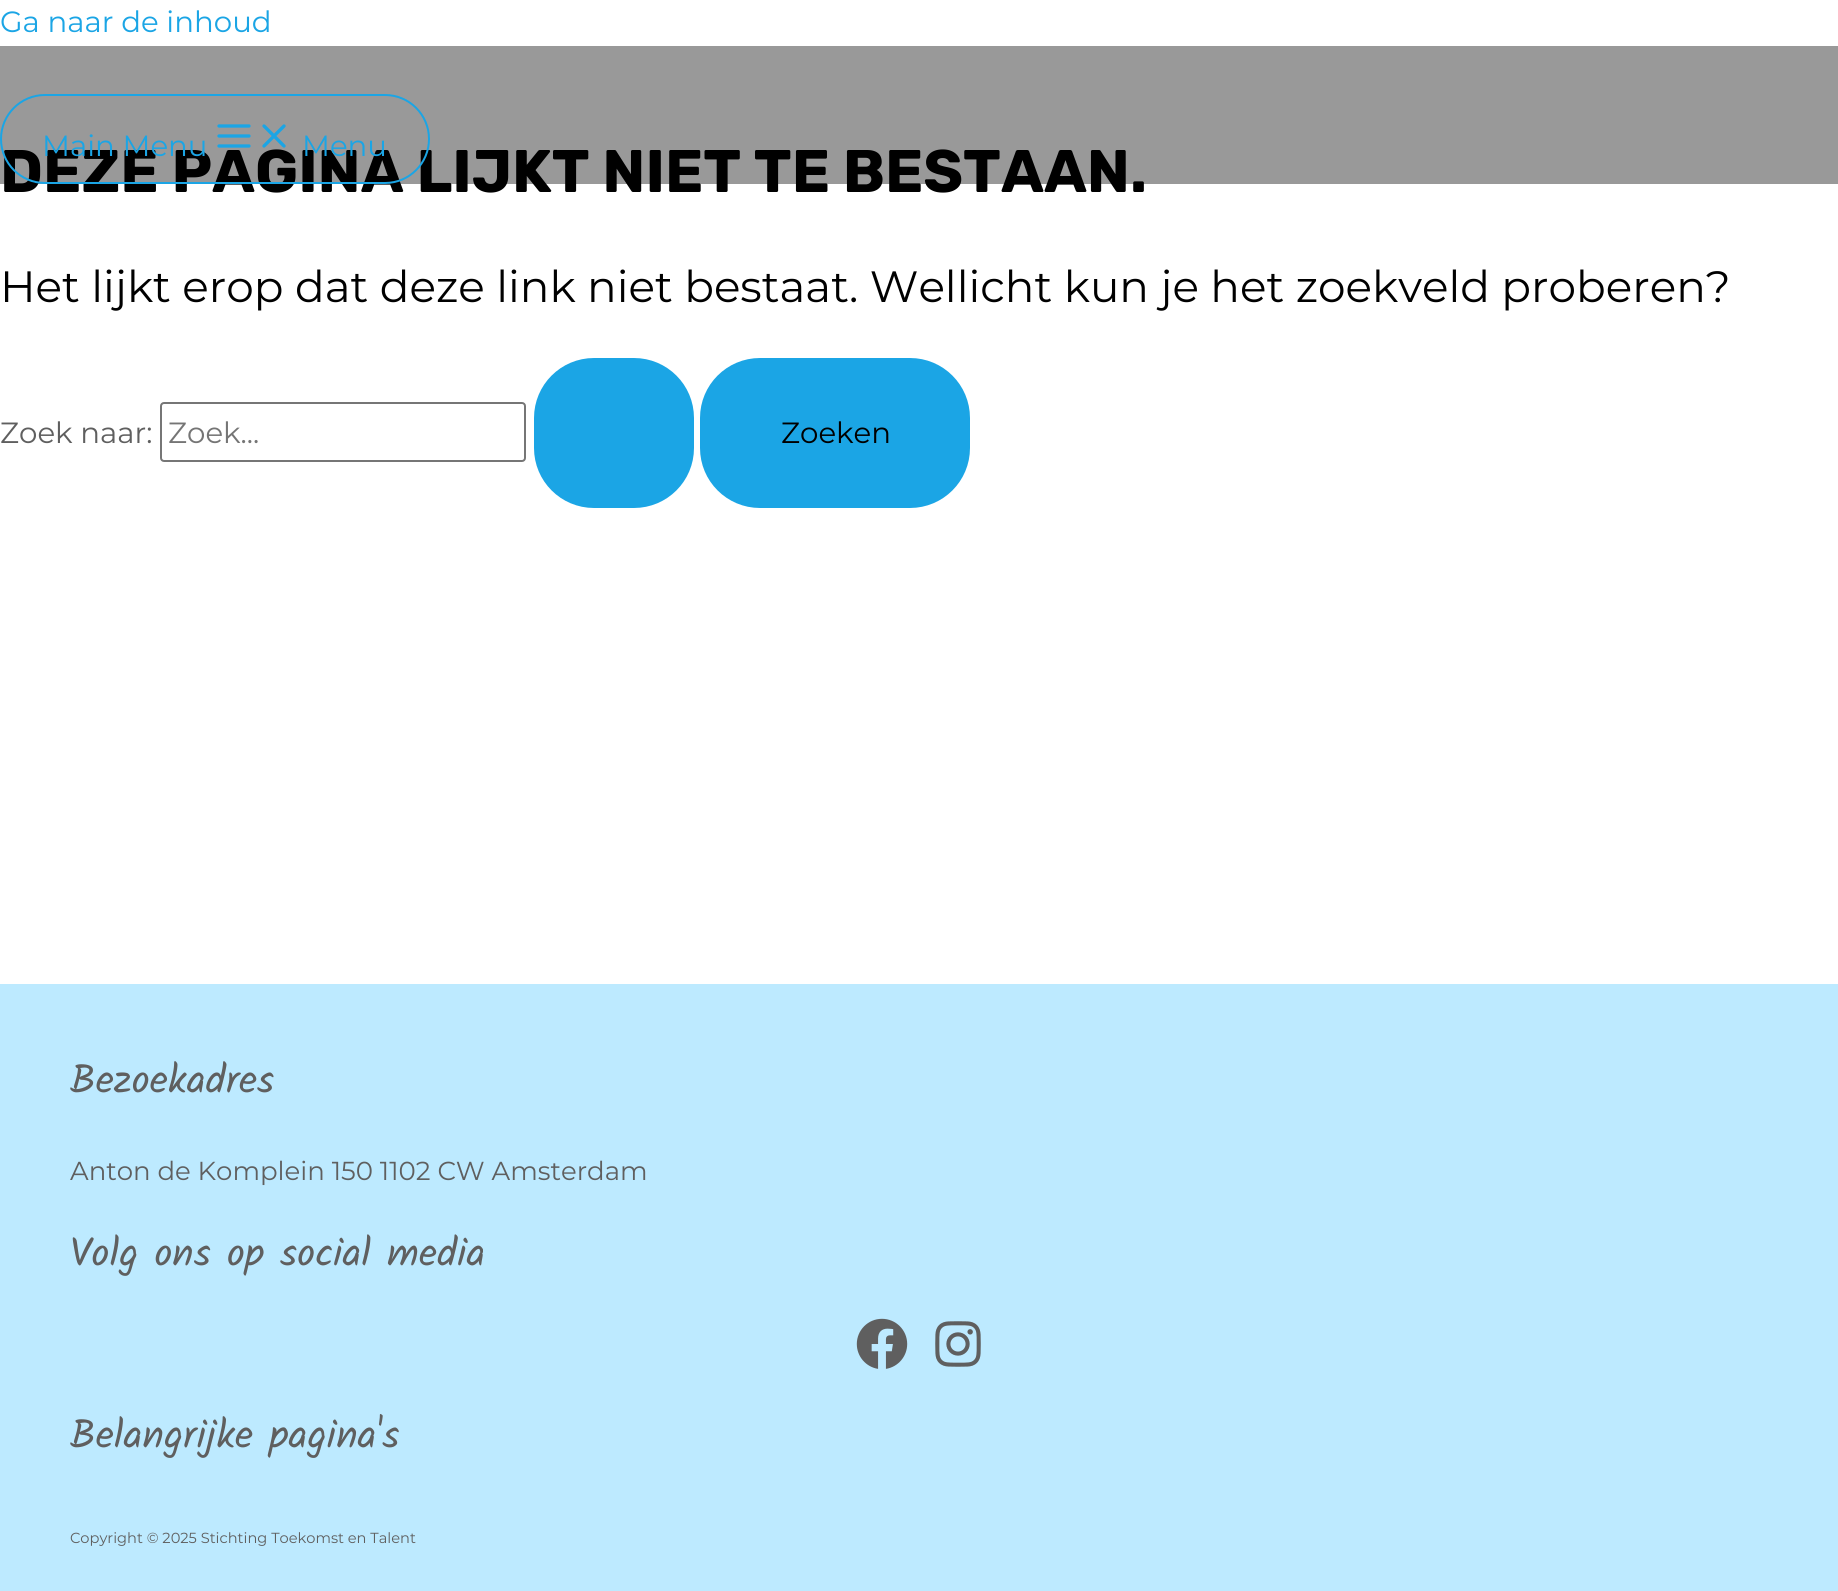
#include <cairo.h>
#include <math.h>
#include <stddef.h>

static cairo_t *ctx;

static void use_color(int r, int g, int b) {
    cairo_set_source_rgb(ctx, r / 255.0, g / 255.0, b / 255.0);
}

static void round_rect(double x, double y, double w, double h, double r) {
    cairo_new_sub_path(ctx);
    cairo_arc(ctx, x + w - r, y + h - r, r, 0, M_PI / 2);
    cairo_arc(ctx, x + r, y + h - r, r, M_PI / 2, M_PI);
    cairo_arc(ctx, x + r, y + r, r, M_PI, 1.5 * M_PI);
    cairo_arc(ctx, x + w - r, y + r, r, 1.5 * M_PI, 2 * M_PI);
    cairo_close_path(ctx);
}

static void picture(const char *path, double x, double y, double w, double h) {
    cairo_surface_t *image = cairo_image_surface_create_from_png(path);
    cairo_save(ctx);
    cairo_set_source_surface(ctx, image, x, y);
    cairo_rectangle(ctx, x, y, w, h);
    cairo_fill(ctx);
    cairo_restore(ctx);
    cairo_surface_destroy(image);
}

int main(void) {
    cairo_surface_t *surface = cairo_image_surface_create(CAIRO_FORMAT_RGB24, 1838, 1591);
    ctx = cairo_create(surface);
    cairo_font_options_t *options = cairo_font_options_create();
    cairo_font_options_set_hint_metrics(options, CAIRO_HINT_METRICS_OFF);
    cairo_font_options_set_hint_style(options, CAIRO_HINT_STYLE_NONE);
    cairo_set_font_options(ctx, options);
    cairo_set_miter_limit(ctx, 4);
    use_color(255, 255, 255);
    cairo_paint(ctx);
    cairo_select_font_face(ctx, "Montserrat Thin", CAIRO_FONT_SLANT_NORMAL, CAIRO_FONT_WEIGHT_NORMAL);
    cairo_set_font_size(ctx, 29.25);
    use_color(27, 165, 229);
    cairo_move_to(ctx, 0, 32);
    cairo_show_text(ctx, "Ga naar de inhoud");
    cairo_select_font_face(ctx, "Rubik Light", CAIRO_FONT_SLANT_NORMAL, CAIRO_FONT_WEIGHT_NORMAL);
    cairo_set_font_size(ctx, 60);
    use_color(0, 0, 0);
    cairo_move_to(ctx, 0, 192);
    cairo_show_text(ctx, "DEZE PAGINA LIJKT NIET TE BESTAAN.");
    cairo_set_source_rgba(ctx, 0, 0, 0, 0.4);
    cairo_rectangle(ctx, 0, 46, 1838, 138);
    cairo_fill(ctx);
    round_rect(1, 95, 428, 88, 44);
    use_color(27, 165, 229);
    cairo_stroke(ctx);
    cairo_select_font_face(ctx, "Montserrat Thin", CAIRO_FONT_SLANT_NORMAL, CAIRO_FONT_WEIGHT_NORMAL);
    cairo_set_font_size(ctx, 29.25);
    cairo_move_to(ctx, 42, 156);
    cairo_show_text(ctx, "Main Menu");
    picture("img1.png", 217, 124, 34, 24);
    picture("img2.png", 262, 124, 24, 24);
    cairo_move_to(ctx, 302, 156);
    cairo_show_text(ctx, "Menu");
    cairo_set_font_size(ctx, 43.8);
    use_color(0, 0, 0);
    cairo_move_to(ctx, 0, 302);
    cairo_show_text(ctx, "Het lijkt erop dat deze link niet bestaat. Wellicht kun je het zoekveld proberen?");
    cairo_set_font_size(ctx, 29.25);
    use_color(95, 95, 95);
    cairo_move_to(ctx, 0, 443);
    cairo_show_text(ctx, "Zoek naar:");
    round_rect(161, 403, 364, 58, 3);
    use_color(118, 118, 118);
    cairo_stroke(ctx);
    use_color(117, 117, 117);
    cairo_move_to(ctx, 168, 443);
    cairo_show_text(ctx, "Zoek...");
    use_color(27, 165, 229);
    round_rect(554, 378, 120, 110, 40);
    cairo_fill_preserve(ctx);
    cairo_set_line_width(ctx, 40);
    cairo_stroke(ctx);
    round_rect(720, 378, 230, 110, 40);
    cairo_fill_preserve(ctx);
    cairo_stroke(ctx);
    use_color(0, 0, 0);
    cairo_move_to(ctx, 781, 443);
    cairo_show_text(ctx, "Zoeken");
    use_color(189, 234, 255);
    cairo_rectangle(ctx, 0, 984, 1838, 607);
    cairo_fill(ctx);
    cairo_select_font_face(ctx, "Kalam", CAIRO_FONT_SLANT_NORMAL, CAIRO_FONT_WEIGHT_NORMAL);
    cairo_set_font_size(ctx, 40.25);
    use_color(95, 95, 95);
    cairo_move_to(ctx, 70, 1093);
    cairo_show_text(ctx, "Bezoekadres");
    cairo_select_font_face(ctx, "Montserrat Thin", CAIRO_FONT_SLANT_NORMAL, CAIRO_FONT_WEIGHT_NORMAL);
    cairo_set_font_size(ctx, 26);
    cairo_move_to(ctx, 70, 1180);
    cairo_show_text(ctx, "Anton de Komplein 150 1102 CW Amsterdam");
    cairo_select_font_face(ctx, "Kalam", CAIRO_FONT_SLANT_NORMAL, CAIRO_FONT_WEIGHT_NORMAL);
    cairo_set_font_size(ctx, 40);
    cairo_move_to(ctx, 70, 1266);
    cairo_show_text(ctx, "Volg ons op social media");
    picture("img3.png", 856, 1318, 52, 51);
    picture("img4.png", 935, 1321, 46, 46);
    cairo_set_font_size(ctx, 40.25);
    cairo_move_to(ctx, 70, 1448);
    cairo_show_text(ctx, "Belangrijke pagina's");
    cairo_select_font_face(ctx, "Montserrat Thin", CAIRO_FONT_SLANT_NORMAL, CAIRO_FONT_WEIGHT_NORMAL);
    cairo_set_font_size(ctx, 14.6);
    cairo_move_to(ctx, 70, 1543);
    cairo_show_text(ctx, "Copyright © 2025 Stichting Toekomst en Talent");
    cairo_surface_write_to_png(surface, "result.png");
    cairo_font_options_destroy(options);
    cairo_destroy(ctx);
    cairo_surface_destroy(surface);
    return 0;
}
